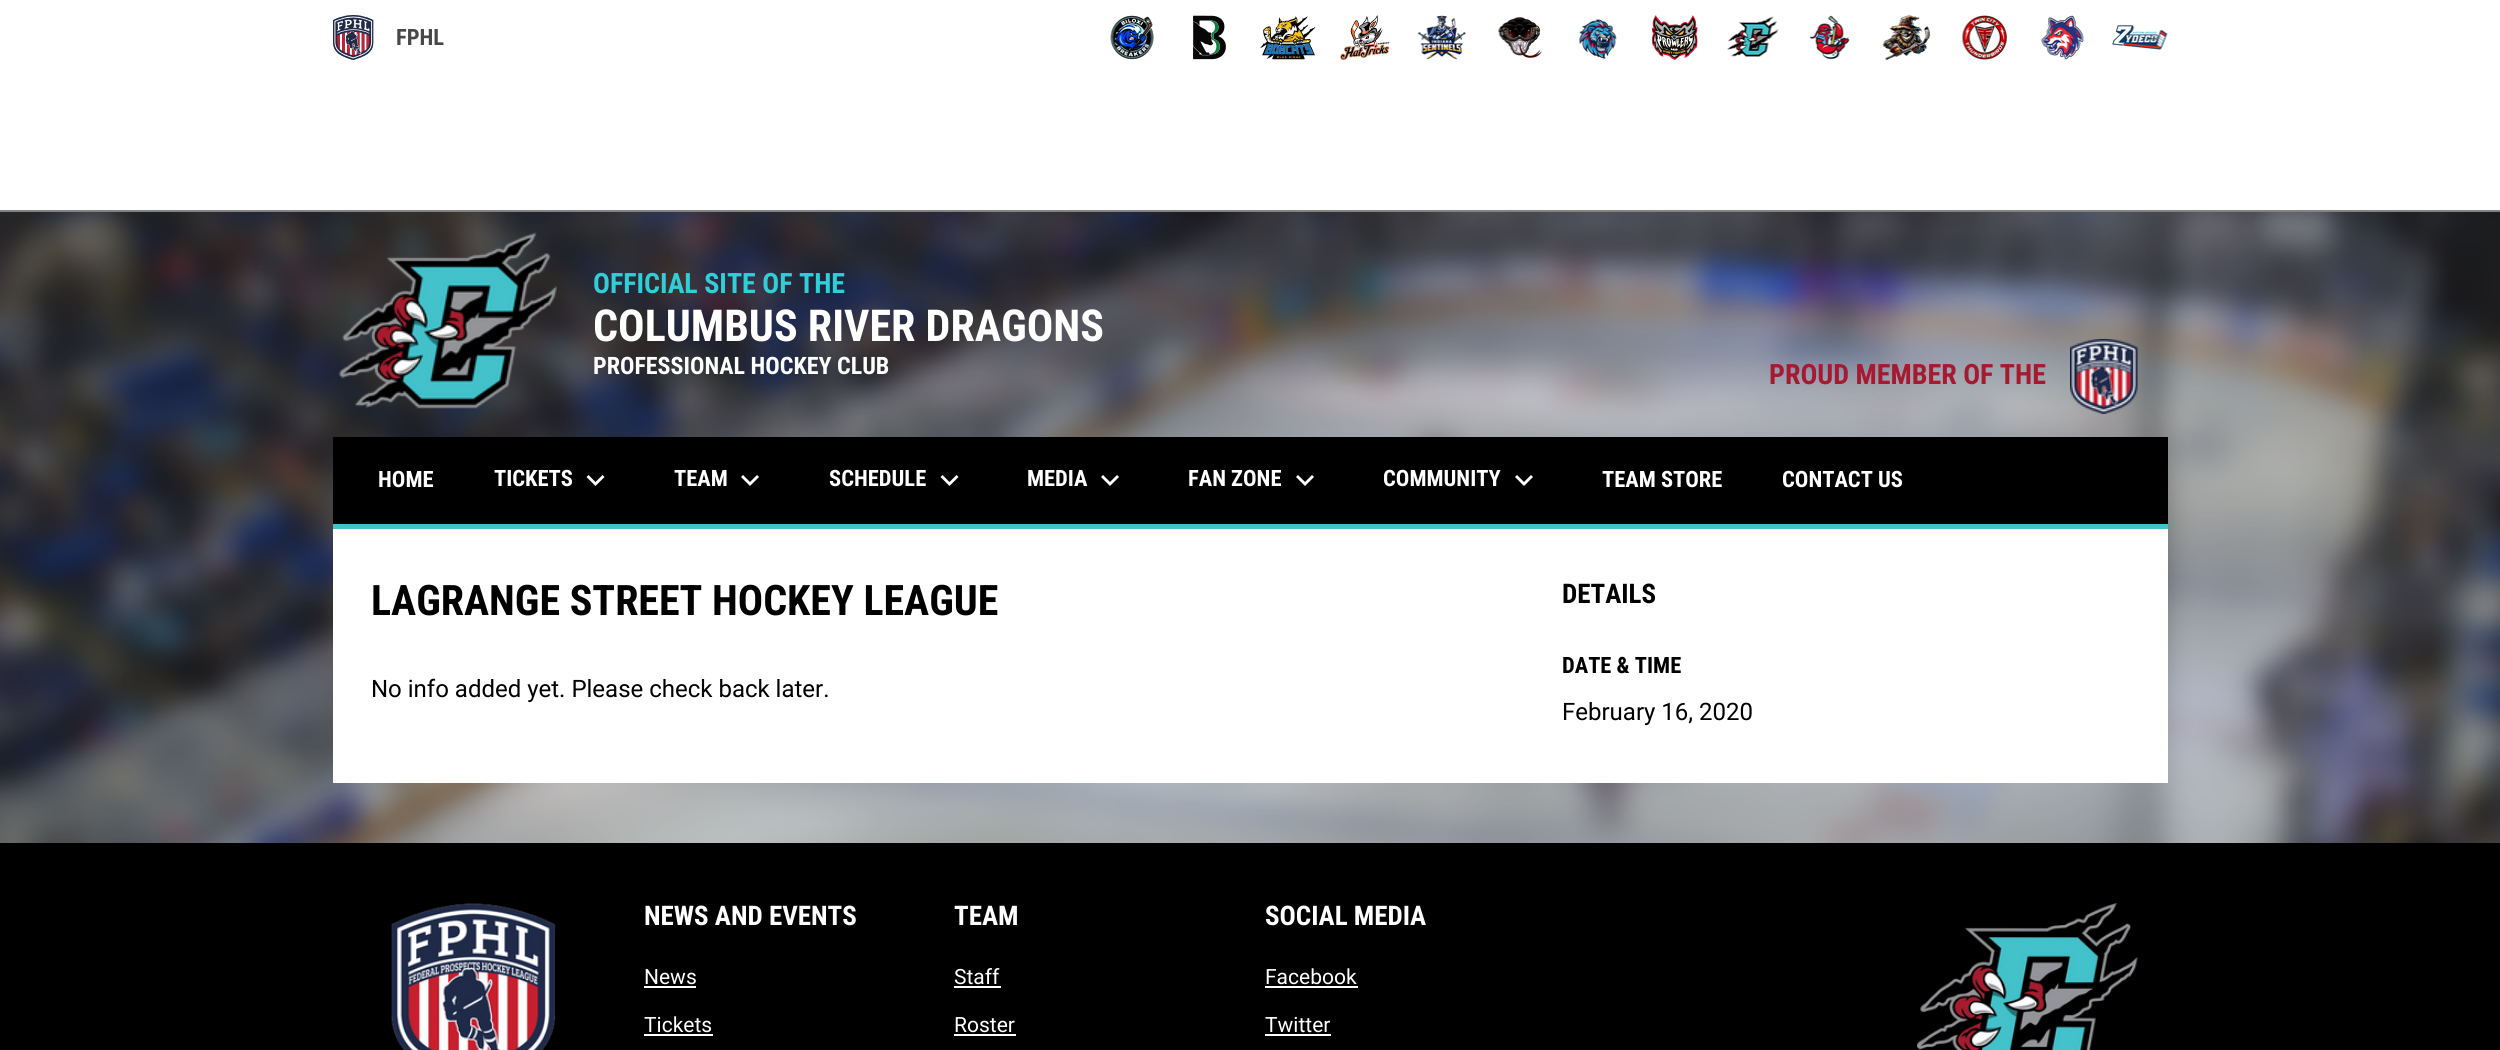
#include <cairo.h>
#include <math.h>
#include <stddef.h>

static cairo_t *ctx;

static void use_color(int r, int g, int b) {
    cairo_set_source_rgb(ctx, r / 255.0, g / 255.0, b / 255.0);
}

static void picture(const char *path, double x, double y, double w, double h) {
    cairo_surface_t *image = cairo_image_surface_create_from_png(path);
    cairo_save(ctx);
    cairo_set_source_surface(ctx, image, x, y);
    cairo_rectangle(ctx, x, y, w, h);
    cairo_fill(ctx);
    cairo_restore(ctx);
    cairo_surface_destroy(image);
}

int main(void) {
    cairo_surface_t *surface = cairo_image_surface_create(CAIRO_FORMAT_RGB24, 2500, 1050);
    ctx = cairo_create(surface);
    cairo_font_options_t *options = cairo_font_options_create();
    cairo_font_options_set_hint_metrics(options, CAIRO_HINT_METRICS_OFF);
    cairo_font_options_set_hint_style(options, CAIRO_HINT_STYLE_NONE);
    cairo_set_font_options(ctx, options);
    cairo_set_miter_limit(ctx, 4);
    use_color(255, 255, 255);
    cairo_paint(ctx);
    picture("img1.png", 333, 15, 41, 45);
    cairo_select_font_face(ctx, "Roboto Condensed", CAIRO_FONT_SLANT_NORMAL, CAIRO_FONT_WEIGHT_BOLD);
    cairo_set_font_size(ctx, 22.5);
    use_color(72, 72, 72);
    cairo_move_to(ctx, 396, 45);
    cairo_show_text(ctx, "FPHL");
    picture("img2.png", 1110, 15, 44, 45);
    picture("img3.png", 1193, 15, 33, 45);
    picture("img4.png", 1260, 16, 56, 44);
    picture("img5.png", 1340, 15, 50, 45);
    picture("img6.png", 1417, 15, 49, 45);
    picture("img7.png", 1498, 17, 44, 41);
    picture("img8.png", 1579, 19, 38, 40);
    picture("img9.png", 1652, 15, 46, 45);
    picture("img10.png", 1727, 16, 52, 41);
    picture("img11.png", 1809, 15, 41, 45);
    picture("img12.png", 1882, 15, 49, 45);
    picture("img13.png", 1962, 15, 45, 45);
    picture("img14.png", 2041, 15, 43, 45);
    picture("img15.png", 2112, 25, 56, 25);
    use_color(131, 131, 131);
    cairo_rectangle(ctx, 0, 210, 2500, 2);
    cairo_fill(ctx);
    picture("img16.png", 0, 212, 2500, 631);
    picture("img17.png", 338, 232, 220, 177);
    cairo_set_font_size(ctx, 28);
    use_color(48, 206, 216);
    cairo_move_to(ctx, 593, 293);
    cairo_show_text(ctx, "OFFICIAL SITE OF THE");
    cairo_set_font_size(ctx, 44);
    use_color(255, 255, 255);
    cairo_move_to(ctx, 593, 341);
    cairo_show_text(ctx, "COLUMBUS RIVER DRAGONS");
    cairo_set_font_size(ctx, 24);
    cairo_move_to(ctx, 593, 374);
    cairo_show_text(ctx, "PROFESSIONAL HOCKEY CLUB");
    cairo_set_font_size(ctx, 28);
    use_color(167, 25, 48);
    cairo_move_to(ctx, 1769, 384);
    cairo_show_text(ctx, "PROUD MEMBER OF THE");
    picture("img18.png", 2070, 339, 68, 75);
    use_color(0, 0, 0);
    cairo_rectangle(ctx, 333, 437, 1835, 87);
    cairo_fill(ctx);
    cairo_set_font_size(ctx, 22.5);
    use_color(255, 255, 255);
    cairo_move_to(ctx, 378, 487);
    cairo_show_text(ctx, "HOME");
    cairo_move_to(ctx, 494, 486);
    cairo_show_text(ctx, "TICKETS");
    cairo_new_path(ctx);
    cairo_move_to(ctx, 588.5, 475);
    cairo_line_to(ctx, 595.5, 482);
    cairo_line_to(ctx, 602.5, 475);
    cairo_line_to(ctx, 604.5, 477);
    cairo_line_to(ctx, 595.5, 486);
    cairo_line_to(ctx, 586.5, 477);
    cairo_close_path(ctx);
    cairo_fill(ctx);
    cairo_move_to(ctx, 674, 486);
    cairo_show_text(ctx, "TEAM");
    cairo_new_path(ctx);
    cairo_move_to(ctx, 743, 475);
    cairo_line_to(ctx, 750, 482);
    cairo_line_to(ctx, 757, 475);
    cairo_line_to(ctx, 759, 477);
    cairo_line_to(ctx, 750, 486);
    cairo_line_to(ctx, 741, 477);
    cairo_close_path(ctx);
    cairo_fill(ctx);
    cairo_move_to(ctx, 829, 486);
    cairo_show_text(ctx, "SCHEDULE");
    cairo_new_path(ctx);
    cairo_move_to(ctx, 942.5, 475);
    cairo_line_to(ctx, 949.5, 482);
    cairo_line_to(ctx, 956.5, 475);
    cairo_line_to(ctx, 958.5, 477);
    cairo_line_to(ctx, 949.5, 486);
    cairo_line_to(ctx, 940.5, 477);
    cairo_close_path(ctx);
    cairo_fill(ctx);
    cairo_move_to(ctx, 1027, 486);
    cairo_show_text(ctx, "MEDIA");
    cairo_new_path(ctx);
    cairo_move_to(ctx, 1103, 475);
    cairo_line_to(ctx, 1110, 482);
    cairo_line_to(ctx, 1117, 475);
    cairo_line_to(ctx, 1119, 477);
    cairo_line_to(ctx, 1110, 486);
    cairo_line_to(ctx, 1101, 477);
    cairo_close_path(ctx);
    cairo_fill(ctx);
    cairo_move_to(ctx, 1188, 486);
    cairo_show_text(ctx, "FAN ZONE");
    cairo_new_path(ctx);
    cairo_move_to(ctx, 1298, 475);
    cairo_line_to(ctx, 1305, 482);
    cairo_line_to(ctx, 1312, 475);
    cairo_line_to(ctx, 1314, 477);
    cairo_line_to(ctx, 1305, 486);
    cairo_line_to(ctx, 1296, 477);
    cairo_close_path(ctx);
    cairo_fill(ctx);
    cairo_move_to(ctx, 1383, 486);
    cairo_show_text(ctx, "COMMUNITY");
    cairo_new_path(ctx);
    cairo_move_to(ctx, 1517, 475);
    cairo_line_to(ctx, 1524, 482);
    cairo_line_to(ctx, 1531, 475);
    cairo_line_to(ctx, 1533, 477);
    cairo_line_to(ctx, 1524, 486);
    cairo_line_to(ctx, 1515, 477);
    cairo_close_path(ctx);
    cairo_fill(ctx);
    cairo_move_to(ctx, 1602, 487);
    cairo_show_text(ctx, "TEAM STORE");
    cairo_move_to(ctx, 1782, 487);
    cairo_show_text(ctx, "CONTACT US");
    cairo_rectangle(ctx, 333, 529, 1835, 254);
    cairo_fill(ctx);
    use_color(67, 194, 203);
    cairo_rectangle(ctx, 333, 524, 1835, 5);
    cairo_fill(ctx);
    cairo_set_font_size(ctx, 42);
    use_color(0, 0, 0);
    cairo_move_to(ctx, 371, 615);
    cairo_show_text(ctx, "LAGRANGE STREET HOCKEY LEAGUE");
    cairo_select_font_face(ctx, "Roboto", CAIRO_FONT_SLANT_NORMAL, CAIRO_FONT_WEIGHT_NORMAL);
    cairo_set_font_size(ctx, 24);
    cairo_move_to(ctx, 371, 697);
    cairo_show_text(ctx, "No info added yet. Please check back later.");
    cairo_select_font_face(ctx, "Roboto Condensed", CAIRO_FONT_SLANT_NORMAL, CAIRO_FONT_WEIGHT_BOLD);
    cairo_set_font_size(ctx, 27);
    cairo_move_to(ctx, 1562, 603);
    cairo_show_text(ctx, "DETAILS");
    cairo_set_font_size(ctx, 22.5);
    cairo_move_to(ctx, 1562, 673);
    cairo_show_text(ctx, "DATE & TIME");
    cairo_select_font_face(ctx, "Roboto", CAIRO_FONT_SLANT_NORMAL, CAIRO_FONT_WEIGHT_NORMAL);
    cairo_set_font_size(ctx, 24);
    cairo_move_to(ctx, 1562, 720);
    cairo_show_text(ctx, "February 16, 2020");
    cairo_rectangle(ctx, 0, 843, 2500, 207);
    cairo_fill(ctx);
    picture("img19.png", 391, 903, 165, 147);
    cairo_select_font_face(ctx, "Roboto Condensed", CAIRO_FONT_SLANT_NORMAL, CAIRO_FONT_WEIGHT_BOLD);
    cairo_set_font_size(ctx, 27);
    use_color(255, 255, 255);
    cairo_move_to(ctx, 644, 925);
    cairo_show_text(ctx, "NEWS AND EVENTS");
    cairo_select_font_face(ctx, "Roboto", CAIRO_FONT_SLANT_NORMAL, CAIRO_FONT_WEIGHT_NORMAL);
    cairo_set_font_size(ctx, 21);
    cairo_move_to(ctx, 644, 984);
    cairo_show_text(ctx, "News");
    cairo_rectangle(ctx, 644, 986, 52, 2);
    cairo_fill(ctx);
    cairo_move_to(ctx, 644, 1032);
    cairo_show_text(ctx, "Tickets");
    cairo_rectangle(ctx, 644, 1034, 69, 2);
    cairo_fill(ctx);
    cairo_select_font_face(ctx, "Roboto Condensed", CAIRO_FONT_SLANT_NORMAL, CAIRO_FONT_WEIGHT_BOLD);
    cairo_set_font_size(ctx, 27);
    cairo_move_to(ctx, 954, 925);
    cairo_show_text(ctx, "TEAM");
    cairo_select_font_face(ctx, "Roboto", CAIRO_FONT_SLANT_NORMAL, CAIRO_FONT_WEIGHT_NORMAL);
    cairo_set_font_size(ctx, 21);
    cairo_move_to(ctx, 954, 984);
    cairo_show_text(ctx, "Staff");
    cairo_rectangle(ctx, 954, 986, 47, 2);
    cairo_fill(ctx);
    cairo_move_to(ctx, 954, 1032);
    cairo_show_text(ctx, "Roster");
    cairo_rectangle(ctx, 954, 1034, 62, 2);
    cairo_fill(ctx);
    cairo_select_font_face(ctx, "Roboto Condensed", CAIRO_FONT_SLANT_NORMAL, CAIRO_FONT_WEIGHT_BOLD);
    cairo_set_font_size(ctx, 27);
    cairo_move_to(ctx, 1265, 925);
    cairo_show_text(ctx, "SOCIAL MEDIA");
    cairo_select_font_face(ctx, "Roboto", CAIRO_FONT_SLANT_NORMAL, CAIRO_FONT_WEIGHT_NORMAL);
    cairo_set_font_size(ctx, 21);
    cairo_move_to(ctx, 1265, 984);
    cairo_show_text(ctx, "Facebook");
    cairo_rectangle(ctx, 1265, 986, 93, 2);
    cairo_fill(ctx);
    cairo_move_to(ctx, 1265, 1032);
    cairo_show_text(ctx, "Twitter");
    cairo_rectangle(ctx, 1265, 1034, 66, 2);
    cairo_fill(ctx);
    picture("img20.png", 1917, 903, 221, 147);
    cairo_surface_write_to_png(surface, "result.png");
    cairo_font_options_destroy(options);
    cairo_destroy(ctx);
    cairo_surface_destroy(surface);
    return 0;
}
